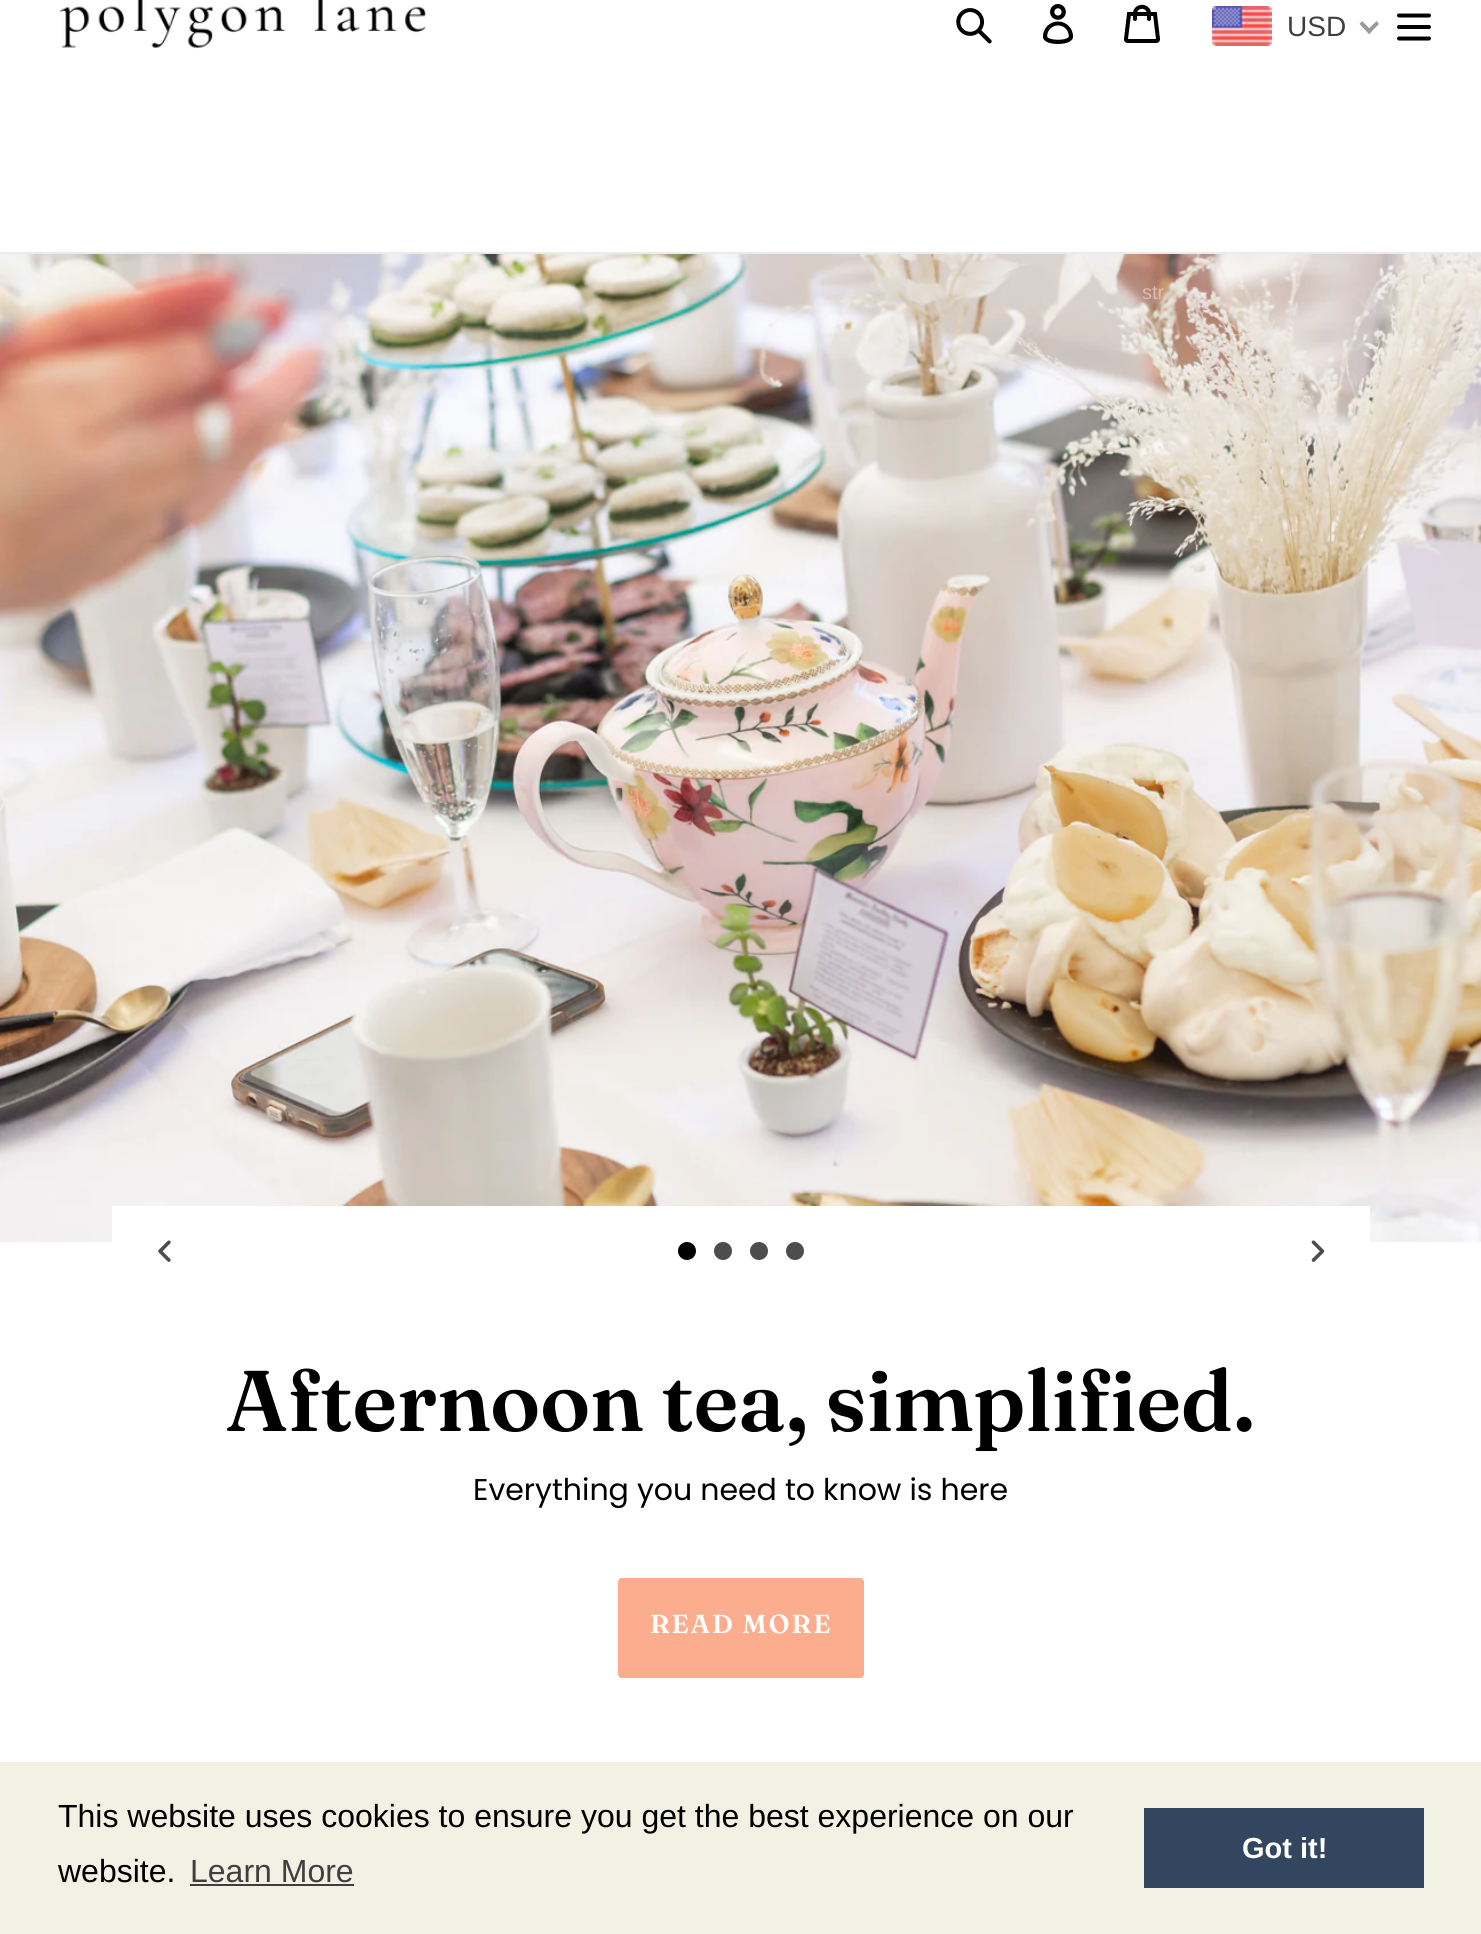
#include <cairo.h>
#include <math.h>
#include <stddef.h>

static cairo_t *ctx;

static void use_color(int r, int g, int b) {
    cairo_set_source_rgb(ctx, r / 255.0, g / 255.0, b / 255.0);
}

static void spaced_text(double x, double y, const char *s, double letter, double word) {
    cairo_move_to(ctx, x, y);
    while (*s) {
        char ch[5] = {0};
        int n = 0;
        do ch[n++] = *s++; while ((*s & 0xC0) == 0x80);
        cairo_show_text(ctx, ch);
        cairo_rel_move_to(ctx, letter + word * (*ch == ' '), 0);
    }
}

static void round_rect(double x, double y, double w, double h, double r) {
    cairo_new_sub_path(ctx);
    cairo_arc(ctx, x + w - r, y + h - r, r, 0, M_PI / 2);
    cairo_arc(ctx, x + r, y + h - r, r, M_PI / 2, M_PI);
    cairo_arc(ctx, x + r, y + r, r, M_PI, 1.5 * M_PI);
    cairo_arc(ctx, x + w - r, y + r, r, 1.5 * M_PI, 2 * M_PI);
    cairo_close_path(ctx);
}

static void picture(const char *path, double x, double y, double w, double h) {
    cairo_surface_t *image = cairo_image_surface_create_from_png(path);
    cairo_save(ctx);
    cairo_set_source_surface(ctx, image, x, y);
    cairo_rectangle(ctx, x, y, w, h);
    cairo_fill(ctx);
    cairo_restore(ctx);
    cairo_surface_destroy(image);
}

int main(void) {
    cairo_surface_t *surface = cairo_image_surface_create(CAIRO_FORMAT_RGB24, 1481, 1934);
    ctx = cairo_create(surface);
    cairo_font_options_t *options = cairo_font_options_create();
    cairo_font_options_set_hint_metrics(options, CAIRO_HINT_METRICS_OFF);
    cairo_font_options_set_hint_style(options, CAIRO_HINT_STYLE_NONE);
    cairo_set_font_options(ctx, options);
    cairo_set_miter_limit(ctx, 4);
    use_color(255, 255, 255);
    cairo_paint(ctx);
    use_color(235, 235, 235);
    cairo_rectangle(ctx, 0, 252, 1481, 2);
    cairo_fill(ctx);
    picture("img1.png", 59, 0, 367, 49);
    picture("img2.png", 956, 8, 36, 36);
    picture("img3.png", 1043, 4, 31, 40);
    picture("img4.png", 1124, 4, 36, 39);
    picture("img5.png", 1397, 13, 34, 28);
    picture("img6.png", 1212, 6, 60, 40);
    cairo_select_font_face(ctx, "Liberation Sans", CAIRO_FONT_SLANT_NORMAL, CAIRO_FONT_WEIGHT_NORMAL);
    cairo_set_font_size(ctx, 28);
    use_color(64, 63, 63);
    cairo_move_to(ctx, 1287, 36);
    cairo_show_text(ctx, "USD");
    use_color(153, 153, 153);
    cairo_new_path(ctx);
    cairo_move_to(ctx, 1376.5, 21);
    cairo_line_to(ctx, 1379, 24);
    cairo_line_to(ctx, 1369, 34);
    cairo_line_to(ctx, 1366.5, 31);
    cairo_close_path(ctx);
    cairo_fill(ctx);
    cairo_new_path(ctx);
    cairo_move_to(ctx, 1362, 21);
    cairo_line_to(ctx, 1372, 31);
    cairo_line_to(ctx, 1369, 34);
    cairo_line_to(ctx, 1359.5, 24);
    cairo_close_path(ctx);
    cairo_fill(ctx);
    picture("img7.png", 0, 254, 1481, 988);
    cairo_set_font_size(ctx, 20);
    use_color(212, 190, 179);
    cairo_move_to(ctx, 1142, 299);
    cairo_show_text(ctx, "str");
    use_color(255, 255, 255);
    cairo_rectangle(ctx, 112, 1206, 1258, 36);
    cairo_fill(ctx);
    picture("img8.png", 158, 1240, 13, 22);
    use_color(0, 0, 0);
    cairo_arc(ctx, 687, 1251, 9, 0, 2 * M_PI);
    cairo_fill(ctx);
    use_color(77, 77, 77);
    cairo_arc(ctx, 723, 1251, 9, 0, 2 * M_PI);
    cairo_fill(ctx);
    cairo_arc(ctx, 759, 1251, 9, 0, 2 * M_PI);
    cairo_fill(ctx);
    cairo_arc(ctx, 795, 1251, 9, 0, 2 * M_PI);
    cairo_fill(ctx);
    picture("img9.png", 1311, 1240, 14, 22);
    cairo_select_font_face(ctx, "Fraunces SemiBold", CAIRO_FONT_SLANT_NORMAL, CAIRO_FONT_WEIGHT_NORMAL);
    cairo_set_font_size(ctx, 86);
    use_color(0, 0, 0);
    cairo_move_to(ctx, 226, 1431);
    cairo_show_text(ctx, "Afternoon tea, simplified.");
    cairo_select_font_face(ctx, "Poppins", CAIRO_FONT_SLANT_NORMAL, CAIRO_FONT_WEIGHT_NORMAL);
    cairo_set_font_size(ctx, 30);
    cairo_move_to(ctx, 473, 1500);
    cairo_show_text(ctx, "Everything you need to know is here");
    use_color(252, 173, 142);
    round_rect(618, 1578, 246, 100, 4);
    cairo_fill(ctx);
    cairo_select_font_face(ctx, "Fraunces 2 SemiBold", CAIRO_FONT_SLANT_NORMAL, CAIRO_FONT_WEIGHT_NORMAL);
    cairo_set_font_size(ctx, 26);
    use_color(255, 255, 255);
    spaced_text(650, 1633, "READ MORE", 2, 0);
    use_color(242, 242, 228);
    cairo_rectangle(ctx, 0, 1762, 1481, 172);
    cairo_fill(ctx);
    cairo_select_font_face(ctx, "Liberation Sans", CAIRO_FONT_SLANT_NORMAL, CAIRO_FONT_WEIGHT_NORMAL);
    cairo_set_font_size(ctx, 32);
    use_color(0, 0, 0);
    cairo_move_to(ctx, 58, 1827);
    cairo_show_text(ctx, "This website uses cookies to ensure you get the best experience on our");
    cairo_move_to(ctx, 58, 1882);
    cairo_show_text(ctx, "website.");
    use_color(64, 63, 63);
    cairo_move_to(ctx, 190, 1882);
    cairo_show_text(ctx, "Learn More");
    use_color(62, 62, 59);
    cairo_rectangle(ctx, 190, 1884, 164, 2);
    cairo_fill(ctx);
    use_color(50, 70, 95);
    cairo_rectangle(ctx, 1144, 1808, 280, 80);
    cairo_fill(ctx);
    cairo_select_font_face(ctx, "Liberation Sans", CAIRO_FONT_SLANT_NORMAL, CAIRO_FONT_WEIGHT_BOLD);
    cairo_set_font_size(ctx, 29);
    use_color(255, 255, 255);
    cairo_move_to(ctx, 1242, 1858);
    cairo_show_text(ctx, "Got it!");
    cairo_surface_write_to_png(surface, "result.png");
    cairo_font_options_destroy(options);
    cairo_destroy(ctx);
    cairo_surface_destroy(surface);
    return 0;
}
